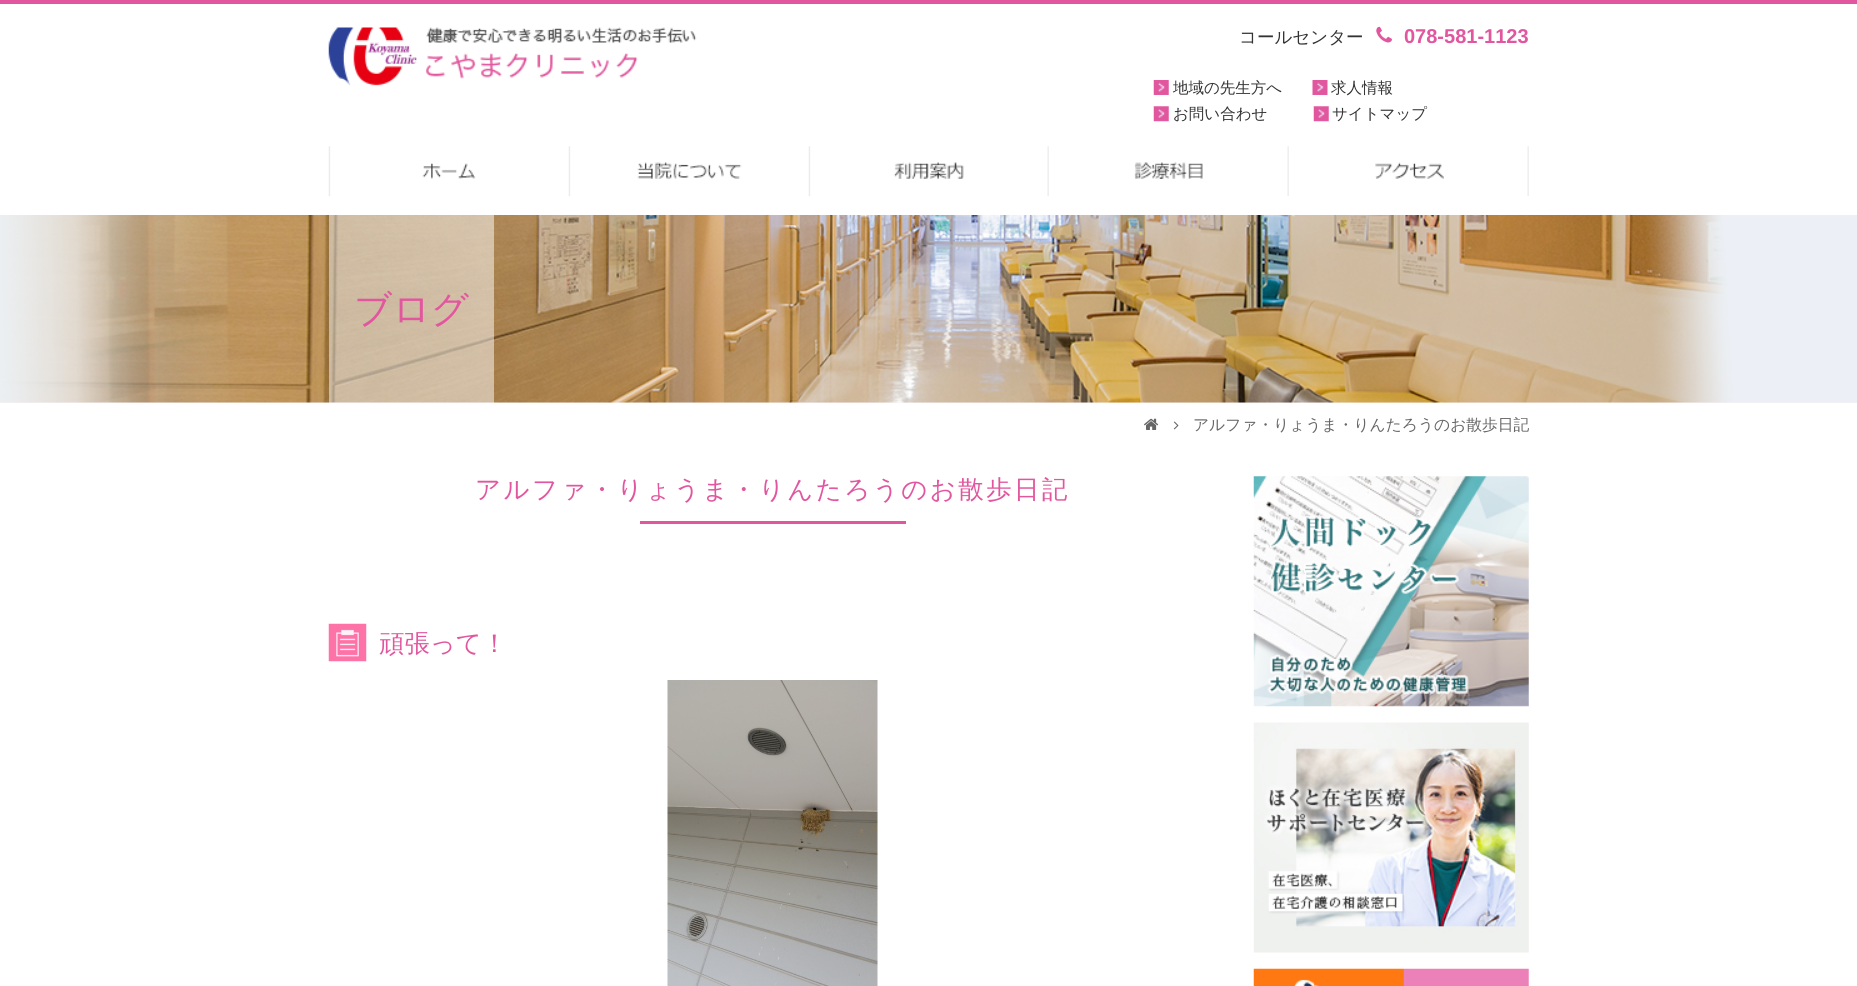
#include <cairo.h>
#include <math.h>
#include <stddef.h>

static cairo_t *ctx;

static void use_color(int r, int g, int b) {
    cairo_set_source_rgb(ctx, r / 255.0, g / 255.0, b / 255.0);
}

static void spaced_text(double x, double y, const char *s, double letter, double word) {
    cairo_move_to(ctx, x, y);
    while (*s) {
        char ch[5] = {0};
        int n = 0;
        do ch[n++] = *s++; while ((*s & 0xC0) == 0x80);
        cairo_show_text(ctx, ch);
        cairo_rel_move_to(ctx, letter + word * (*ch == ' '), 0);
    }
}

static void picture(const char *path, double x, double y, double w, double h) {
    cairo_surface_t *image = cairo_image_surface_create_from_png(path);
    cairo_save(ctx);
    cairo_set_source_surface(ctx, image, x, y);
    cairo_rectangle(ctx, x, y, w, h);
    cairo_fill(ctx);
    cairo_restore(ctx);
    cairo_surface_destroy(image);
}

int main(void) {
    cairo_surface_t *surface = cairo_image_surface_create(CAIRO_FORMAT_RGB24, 1857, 986);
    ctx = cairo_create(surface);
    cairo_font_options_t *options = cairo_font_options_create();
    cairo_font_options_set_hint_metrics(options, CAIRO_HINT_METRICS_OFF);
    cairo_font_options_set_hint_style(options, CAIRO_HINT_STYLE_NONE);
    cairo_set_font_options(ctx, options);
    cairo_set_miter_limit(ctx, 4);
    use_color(255, 255, 255);
    cairo_paint(ctx);
    use_color(225, 86, 158);
    cairo_rectangle(ctx, 0, 0, 1857, 4);
    cairo_fill(ctx);
    picture("img1.png", 328, 27, 369, 59);
    cairo_select_font_face(ctx, "WenQuanYi Zen Hei Medium", CAIRO_FONT_SLANT_NORMAL, CAIRO_FONT_WEIGHT_NORMAL);
    cairo_set_font_size(ctx, 17.5);
    use_color(51, 51, 51);
    cairo_move_to(ctx, 1239, 43);
    cairo_show_text(ctx, "コールセンター");
    picture("img2.png", 1376, 26, 16, 17);
    cairo_select_font_face(ctx, "Liberation Sans", CAIRO_FONT_SLANT_NORMAL, CAIRO_FONT_WEIGHT_BOLD);
    cairo_set_font_size(ctx, 20);
    use_color(225, 86, 158);
    cairo_move_to(ctx, 1404, 43);
    cairo_show_text(ctx, "078-581-1123");
    picture("img3.png", 1153, 80, 16, 15);
    cairo_select_font_face(ctx, "WenQuanYi Zen Hei Medium", CAIRO_FONT_SLANT_NORMAL, CAIRO_FONT_WEIGHT_NORMAL);
    cairo_set_font_size(ctx, 15.5);
    use_color(51, 51, 51);
    cairo_move_to(ctx, 1173, 93);
    cairo_show_text(ctx, "地域の先生方へ");
    picture("img4.png", 1312, 80, 16, 15);
    cairo_move_to(ctx, 1331, 93);
    cairo_show_text(ctx, "求人情報");
    picture("img5.png", 1153, 106, 16, 16);
    cairo_move_to(ctx, 1173, 119);
    cairo_show_text(ctx, "お問い合わせ");
    picture("img6.png", 1313, 106, 16, 16);
    cairo_move_to(ctx, 1332, 119);
    cairo_show_text(ctx, "サイトマップ");
    picture("img7.png", 328, 146, 148, 51);
    picture("img8.png", 568, 146, 174, 51);
    picture("img9.png", 808, 146, 241, 51);
    picture("img10.png", 1134, 146, 155, 50);
    picture("img11.png", 1375, 146, 154, 50);
    use_color(249, 240, 244);
    cairo_rectangle(ctx, 0, 402, 1857, 1);
    cairo_fill(ctx);
    picture("img12.png", 0, 215, 1857, 188);
    cairo_set_source_rgba(ctx, 1, 1, 1, 0.5);
    cairo_rectangle(ctx, 329, 215, 165, 188);
    cairo_fill(ctx);
    cairo_set_font_size(ctx, 37.5);
    use_color(225, 86, 158);
    cairo_move_to(ctx, 354, 322);
    cairo_show_text(ctx, "ブログ");
    picture("img13.png", 1144, 418, 15, 12);
    picture("img14.png", 1173, 421, 6, 9);
    cairo_set_font_size(ctx, 15.75);
    use_color(102, 102, 102);
    cairo_move_to(ctx, 1193, 430);
    cairo_show_text(ctx, "アルファ・りょうま・りんたろうのお散歩日記");
    cairo_set_font_size(ctx, 25.4);
    use_color(225, 86, 158);
    spaced_text(475, 498, "アルファ・りょうま・りんたろうのお散歩日記", 2.5, 0);
    cairo_rectangle(ctx, 640, 521, 266, 3);
    cairo_fill(ctx);
    picture("img15.png", 328, 623, 39, 39);
    cairo_move_to(ctx, 379, 652);
    cairo_show_text(ctx, "頑張って！");
    picture("img16.png", 667, 680, 211, 306);
    picture("img17.png", 1253, 476, 276, 231);
    picture("img18.png", 1253, 722, 276, 231);
    picture("img19.png", 1253, 968, 276, 18);
    cairo_surface_write_to_png(surface, "result.png");
    cairo_font_options_destroy(options);
    cairo_destroy(ctx);
    cairo_surface_destroy(surface);
    return 0;
}
